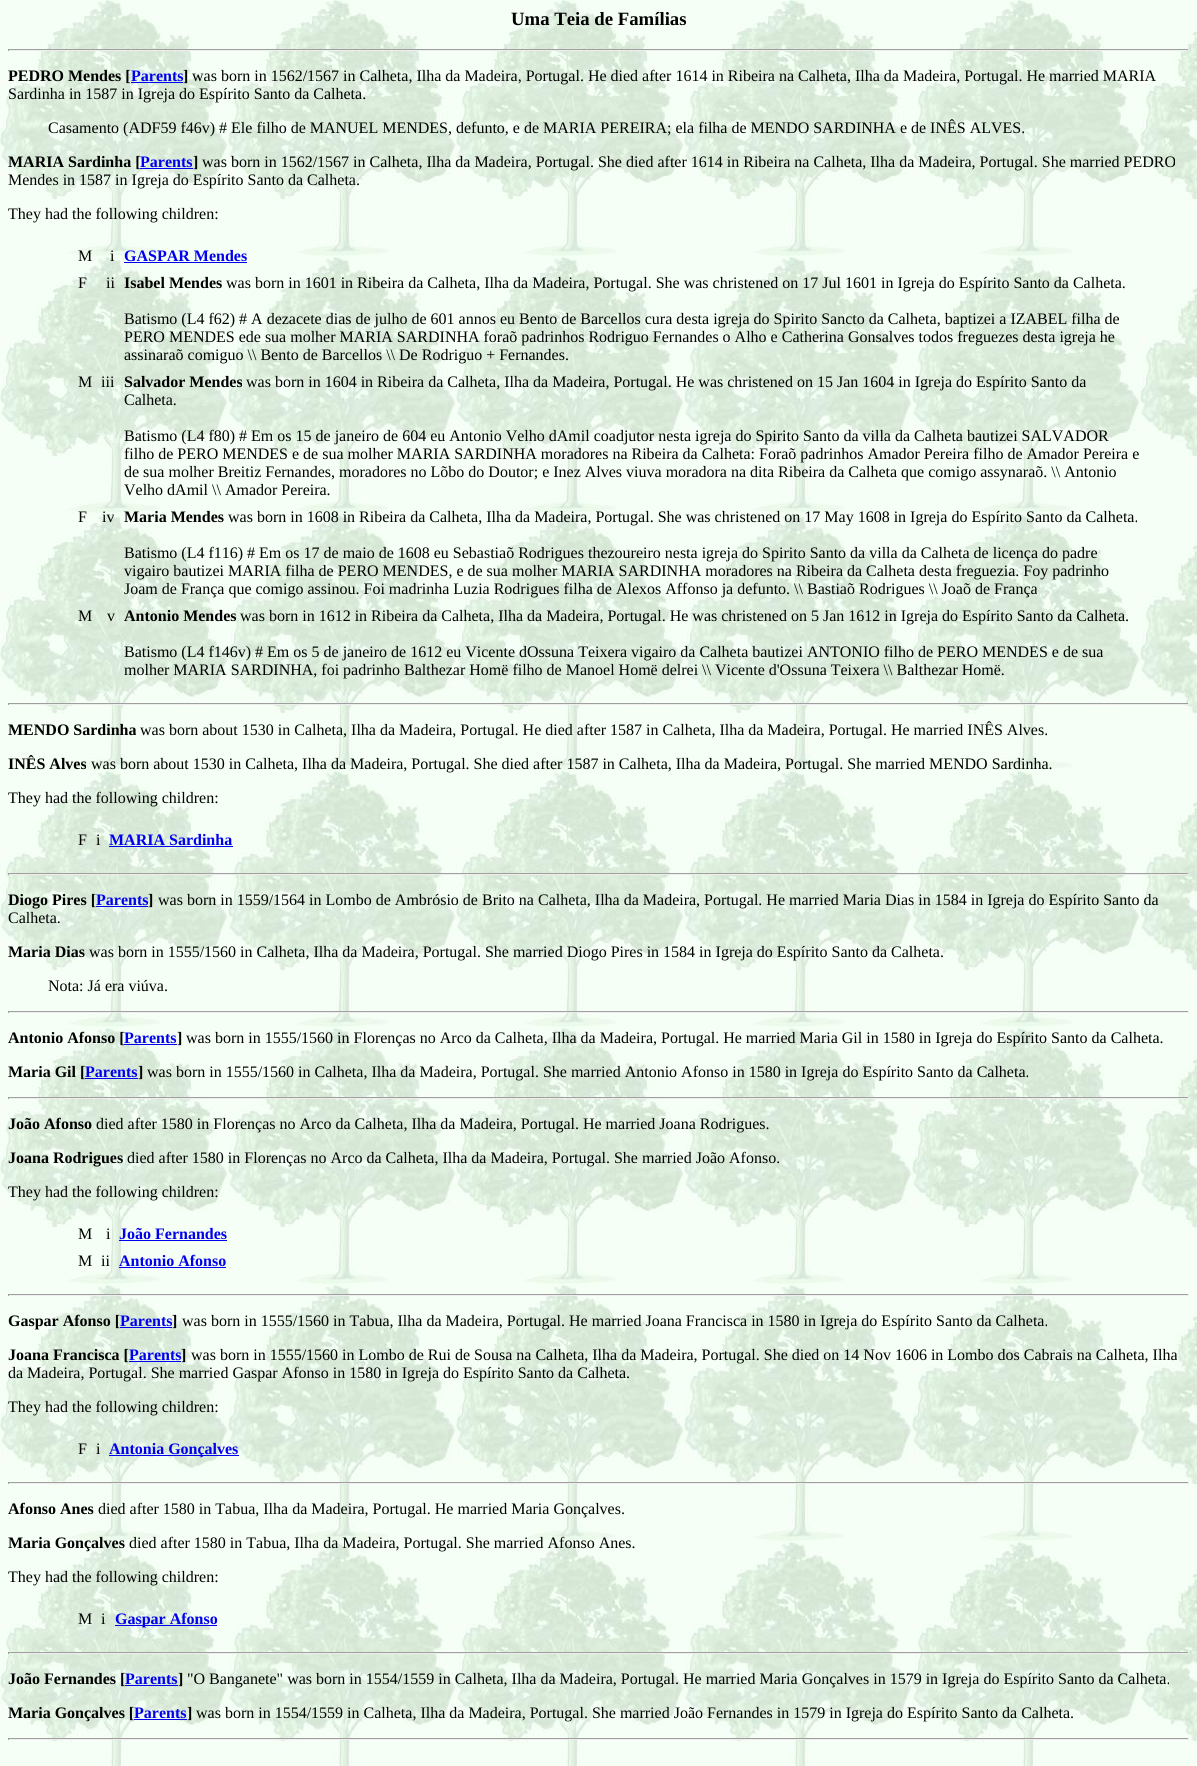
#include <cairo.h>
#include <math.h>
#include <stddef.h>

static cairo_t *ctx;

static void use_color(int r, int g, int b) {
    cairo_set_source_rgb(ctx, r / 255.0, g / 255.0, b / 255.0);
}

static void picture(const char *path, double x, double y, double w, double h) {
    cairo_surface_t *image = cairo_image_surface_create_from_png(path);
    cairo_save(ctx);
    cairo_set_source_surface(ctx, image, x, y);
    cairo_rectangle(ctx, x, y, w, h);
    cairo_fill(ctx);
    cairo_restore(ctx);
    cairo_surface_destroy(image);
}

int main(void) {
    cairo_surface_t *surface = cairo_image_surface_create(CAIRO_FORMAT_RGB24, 1197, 1766);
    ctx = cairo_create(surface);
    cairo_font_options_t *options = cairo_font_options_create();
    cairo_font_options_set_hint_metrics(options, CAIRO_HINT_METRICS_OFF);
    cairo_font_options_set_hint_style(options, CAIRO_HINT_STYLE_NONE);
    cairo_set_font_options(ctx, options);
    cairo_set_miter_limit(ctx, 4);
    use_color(255, 255, 255);
    cairo_paint(ctx);
    picture("img1.png", 0, 0, 1197, 1766);
    cairo_select_font_face(ctx, "Liberation Serif", CAIRO_FONT_SLANT_NORMAL, CAIRO_FONT_WEIGHT_BOLD);
    cairo_set_font_size(ctx, 18.75);
    use_color(0, 0, 0);
    cairo_move_to(ctx, 511, 25);
    cairo_show_text(ctx, "Uma Teia de Famílias");
    use_color(159, 159, 159);
    cairo_rectangle(ctx, 8, 49, 1181, 1);
    cairo_fill(ctx);
    use_color(238, 238, 238);
    cairo_rectangle(ctx, 1188, 49, 1, 2);
    cairo_fill(ctx);
    cairo_rectangle(ctx, 8, 50, 1181, 1);
    cairo_fill(ctx);
    use_color(159, 159, 159);
    cairo_rectangle(ctx, 8, 49, 1, 2);
    cairo_fill(ctx);
    cairo_set_font_size(ctx, 16);
    use_color(0, 0, 0);
    cairo_move_to(ctx, 8, 81);
    cairo_show_text(ctx, "PEDRO Mendes [");
    use_color(0, 0, 238);
    cairo_rectangle(ctx, 131, 82, 52, 1);
    cairo_fill(ctx);
    cairo_move_to(ctx, 131, 81);
    cairo_show_text(ctx, "Parents");
    use_color(0, 0, 0);
    cairo_move_to(ctx, 183, 81);
    cairo_show_text(ctx, "]");
    cairo_select_font_face(ctx, "Liberation Serif", CAIRO_FONT_SLANT_NORMAL, CAIRO_FONT_WEIGHT_NORMAL);
    cairo_move_to(ctx, 192, 81);
    cairo_show_text(ctx, "was born in 1562/1567 in Calheta, Ilha da Madeira, Portugal. He died after 1614 in Ribeira na Calheta, Ilha da Madeira, Portugal. He married MARIA");
    cairo_move_to(ctx, 8, 99);
    cairo_show_text(ctx, "Sardinha in 1587 in Igreja do Espírito Santo da Calheta.");
    cairo_move_to(ctx, 48, 133);
    cairo_show_text(ctx, "Casamento (ADF59 f46v) # Ele filho de MANUEL MENDES, defunto, e de MARIA PEREIRA; ela filha de MENDO SARDINHA e de INÊS ALVES.");
    cairo_select_font_face(ctx, "Liberation Serif", CAIRO_FONT_SLANT_NORMAL, CAIRO_FONT_WEIGHT_BOLD);
    cairo_move_to(ctx, 8, 167);
    cairo_show_text(ctx, "MARIA Sardinha [");
    use_color(0, 0, 238);
    cairo_rectangle(ctx, 140, 168, 53, 1);
    cairo_fill(ctx);
    cairo_move_to(ctx, 140, 167);
    cairo_show_text(ctx, "Parents");
    use_color(0, 0, 0);
    cairo_move_to(ctx, 193, 167);
    cairo_show_text(ctx, "]");
    cairo_select_font_face(ctx, "Liberation Serif", CAIRO_FONT_SLANT_NORMAL, CAIRO_FONT_WEIGHT_NORMAL);
    cairo_move_to(ctx, 202, 167);
    cairo_show_text(ctx, "was born in 1562/1567 in Calheta, Ilha da Madeira, Portugal. She died after 1614 in Ribeira na Calheta, Ilha da Madeira, Portugal. She married PEDRO");
    cairo_move_to(ctx, 8, 185);
    cairo_show_text(ctx, "Mendes in 1587 in Igreja do Espírito Santo da Calheta.");
    cairo_move_to(ctx, 8, 219);
    cairo_show_text(ctx, "They had the following children:");
    cairo_move_to(ctx, 78, 261);
    cairo_show_text(ctx, "M");
    cairo_move_to(ctx, 110, 261);
    cairo_show_text(ctx, "i");
    cairo_select_font_face(ctx, "Liberation Serif", CAIRO_FONT_SLANT_NORMAL, CAIRO_FONT_WEIGHT_BOLD);
    use_color(0, 0, 238);
    cairo_move_to(ctx, 124, 261);
    cairo_show_text(ctx, "GASPAR Mendes");
    cairo_rectangle(ctx, 124, 262, 123, 1);
    cairo_fill(ctx);
    cairo_select_font_face(ctx, "Liberation Serif", CAIRO_FONT_SLANT_NORMAL, CAIRO_FONT_WEIGHT_NORMAL);
    use_color(0, 0, 0);
    cairo_move_to(ctx, 78, 288);
    cairo_show_text(ctx, "F");
    cairo_move_to(ctx, 106, 288);
    cairo_show_text(ctx, "ii");
    cairo_select_font_face(ctx, "Liberation Serif", CAIRO_FONT_SLANT_NORMAL, CAIRO_FONT_WEIGHT_BOLD);
    cairo_move_to(ctx, 124, 288);
    cairo_show_text(ctx, "Isabel Mendes");
    cairo_select_font_face(ctx, "Liberation Serif", CAIRO_FONT_SLANT_NORMAL, CAIRO_FONT_WEIGHT_NORMAL);
    cairo_move_to(ctx, 226, 288);
    cairo_show_text(ctx, "was born in 1601 in Ribeira da Calheta, Ilha da Madeira, Portugal. She was christened on 17 Jul 1601 in Igreja do Espírito Santo da Calheta.");
    cairo_move_to(ctx, 124, 324);
    cairo_show_text(ctx, "Batismo (L4 f62) # A dezacete dias de julho de 601 annos eu Bento de Barcellos cura desta igreja do Spirito Sancto da Calheta, baptizei a IZABEL filha de");
    cairo_move_to(ctx, 124, 342);
    cairo_show_text(ctx, "PERO MENDES ede sua molher MARIA SARDINHA foraõ padrinhos Rodriguo Fernandes o Alho e Catherina Gonsalves todos freguezes desta igreja he");
    cairo_move_to(ctx, 124, 360);
    cairo_show_text(ctx, "assinaraõ comiguo \\\\ Bento de Barcellos \\\\ De Rodriguo + Fernandes.");
    cairo_move_to(ctx, 78, 387);
    cairo_show_text(ctx, "M");
    cairo_move_to(ctx, 101, 387);
    cairo_show_text(ctx, "iii");
    cairo_select_font_face(ctx, "Liberation Serif", CAIRO_FONT_SLANT_NORMAL, CAIRO_FONT_WEIGHT_BOLD);
    cairo_move_to(ctx, 124, 387);
    cairo_show_text(ctx, "Salvador Mendes");
    cairo_select_font_face(ctx, "Liberation Serif", CAIRO_FONT_SLANT_NORMAL, CAIRO_FONT_WEIGHT_NORMAL);
    cairo_move_to(ctx, 246, 387);
    cairo_show_text(ctx, "was born in 1604 in Ribeira da Calheta, Ilha da Madeira, Portugal. He was christened on 15 Jan 1604 in Igreja do Espírito Santo da");
    cairo_move_to(ctx, 124, 405);
    cairo_show_text(ctx, "Calheta.");
    cairo_move_to(ctx, 124, 441);
    cairo_show_text(ctx, "Batismo (L4 f80) # Em os 15 de janeiro de 604 eu Antonio Velho dAmil coadjutor nesta igreja do Spirito Santo da villa da Calheta bautizei SALVADOR");
    cairo_move_to(ctx, 124, 459);
    cairo_show_text(ctx, "filho de PERO MENDES e de sua molher MARIA SARDINHA moradores na Ribeira da Calheta: Foraõ padrinhos Amador Pereira filho de Amador Pereira e");
    cairo_move_to(ctx, 124, 477);
    cairo_show_text(ctx, "de sua molher Breitiz Fernandes, moradores no Lõbo do Doutor; e Inez Alves viuva moradora na dita Ribeira da Calheta que comigo assynaraõ. \\\\ Antonio");
    cairo_move_to(ctx, 124, 495);
    cairo_show_text(ctx, "Velho dAmil \\\\ Amador Pereira.");
    cairo_move_to(ctx, 78, 522);
    cairo_show_text(ctx, "F");
    cairo_move_to(ctx, 102, 522);
    cairo_show_text(ctx, "iv");
    cairo_select_font_face(ctx, "Liberation Serif", CAIRO_FONT_SLANT_NORMAL, CAIRO_FONT_WEIGHT_BOLD);
    cairo_move_to(ctx, 124, 522);
    cairo_show_text(ctx, "Maria Mendes");
    cairo_select_font_face(ctx, "Liberation Serif", CAIRO_FONT_SLANT_NORMAL, CAIRO_FONT_WEIGHT_NORMAL);
    cairo_move_to(ctx, 228, 522);
    cairo_show_text(ctx, "was born in 1608 in Ribeira da Calheta, Ilha da Madeira, Portugal. She was christened on 17 May 1608 in Igreja do Espírito Santo da Calheta.");
    cairo_move_to(ctx, 124, 558);
    cairo_show_text(ctx, "Batismo (L4 f116) # Em os 17 de maio de 1608 eu Sebastiaõ Rodrigues thezoureiro nesta igreja do Spirito Santo da villa da Calheta de licença do padre");
    cairo_move_to(ctx, 124, 576);
    cairo_show_text(ctx, "vigairo bautizei MARIA filha de PERO MENDES, e de sua molher MARIA SARDINHA moradores na Ribeira da Calheta desta freguezia. Foy padrinho");
    cairo_move_to(ctx, 124, 594);
    cairo_show_text(ctx, "Joam de França que comigo assinou. Foi madrinha Luzia Rodrigues filha de Alexos Affonso ja defunto. \\\\ Bastiaõ Rodrigues \\\\ Joaõ de França");
    cairo_move_to(ctx, 78, 621);
    cairo_show_text(ctx, "M");
    cairo_move_to(ctx, 107, 621);
    cairo_show_text(ctx, "v");
    cairo_select_font_face(ctx, "Liberation Serif", CAIRO_FONT_SLANT_NORMAL, CAIRO_FONT_WEIGHT_BOLD);
    cairo_move_to(ctx, 124, 621);
    cairo_show_text(ctx, "Antonio Mendes");
    cairo_select_font_face(ctx, "Liberation Serif", CAIRO_FONT_SLANT_NORMAL, CAIRO_FONT_WEIGHT_NORMAL);
    cairo_move_to(ctx, 240, 621);
    cairo_show_text(ctx, "was born in 1612 in Ribeira da Calheta, Ilha da Madeira, Portugal. He was christened on 5 Jan 1612 in Igreja do Espírito Santo da Calheta.");
    cairo_move_to(ctx, 124, 657);
    cairo_show_text(ctx, "Batismo (L4 f146v) # Em os 5 de janeiro de 1612 eu Vicente dOssuna Teixera vigairo da Calheta bautizei ANTONIO filho de PERO MENDES e de sua");
    cairo_move_to(ctx, 124, 675);
    cairo_show_text(ctx, "molher MARIA SARDINHA, foi padrinho Balthezar Homë filho de Manoel Homë delrei \\\\ Vicente d'Ossuna Teixera \\\\ Balthezar Homë.");
    use_color(159, 159, 159);
    cairo_rectangle(ctx, 8, 703, 1181, 1);
    cairo_fill(ctx);
    use_color(238, 238, 238);
    cairo_rectangle(ctx, 1188, 703, 1, 2);
    cairo_fill(ctx);
    cairo_rectangle(ctx, 8, 704, 1181, 1);
    cairo_fill(ctx);
    use_color(159, 159, 159);
    cairo_rectangle(ctx, 8, 703, 1, 2);
    cairo_fill(ctx);
    cairo_select_font_face(ctx, "Liberation Serif", CAIRO_FONT_SLANT_NORMAL, CAIRO_FONT_WEIGHT_BOLD);
    use_color(0, 0, 0);
    cairo_move_to(ctx, 8, 735);
    cairo_show_text(ctx, "MENDO Sardinha");
    cairo_select_font_face(ctx, "Liberation Serif", CAIRO_FONT_SLANT_NORMAL, CAIRO_FONT_WEIGHT_NORMAL);
    cairo_move_to(ctx, 140, 735);
    cairo_show_text(ctx, "was born about 1530 in Calheta, Ilha da Madeira, Portugal. He died after 1587 in Calheta, Ilha da Madeira, Portugal. He married INÊS Alves.");
    cairo_select_font_face(ctx, "Liberation Serif", CAIRO_FONT_SLANT_NORMAL, CAIRO_FONT_WEIGHT_BOLD);
    cairo_move_to(ctx, 8, 769);
    cairo_show_text(ctx, "INÊS Alves");
    cairo_select_font_face(ctx, "Liberation Serif", CAIRO_FONT_SLANT_NORMAL, CAIRO_FONT_WEIGHT_NORMAL);
    cairo_move_to(ctx, 91, 769);
    cairo_show_text(ctx, "was born about 1530 in Calheta, Ilha da Madeira, Portugal. She died after 1587 in Calheta, Ilha da Madeira, Portugal. She married MENDO Sardinha.");
    cairo_move_to(ctx, 8, 803);
    cairo_show_text(ctx, "They had the following children:");
    cairo_move_to(ctx, 78, 845);
    cairo_show_text(ctx, "F");
    cairo_move_to(ctx, 96, 845);
    cairo_show_text(ctx, "i");
    cairo_select_font_face(ctx, "Liberation Serif", CAIRO_FONT_SLANT_NORMAL, CAIRO_FONT_WEIGHT_BOLD);
    use_color(0, 0, 238);
    cairo_move_to(ctx, 109, 845);
    cairo_show_text(ctx, "MARIA Sardinha");
    cairo_rectangle(ctx, 109, 846, 124, 1);
    cairo_fill(ctx);
    use_color(159, 159, 159);
    cairo_rectangle(ctx, 8, 873, 1181, 1);
    cairo_fill(ctx);
    use_color(238, 238, 238);
    cairo_rectangle(ctx, 1188, 873, 1, 2);
    cairo_fill(ctx);
    cairo_rectangle(ctx, 8, 874, 1181, 1);
    cairo_fill(ctx);
    use_color(159, 159, 159);
    cairo_rectangle(ctx, 8, 873, 1, 2);
    cairo_fill(ctx);
    use_color(0, 0, 0);
    cairo_move_to(ctx, 8, 905);
    cairo_show_text(ctx, "Diogo Pires [");
    use_color(0, 0, 238);
    cairo_rectangle(ctx, 96, 906, 52, 1);
    cairo_fill(ctx);
    cairo_move_to(ctx, 96, 905);
    cairo_show_text(ctx, "Parents");
    use_color(0, 0, 0);
    cairo_move_to(ctx, 148, 905);
    cairo_show_text(ctx, "]");
    cairo_select_font_face(ctx, "Liberation Serif", CAIRO_FONT_SLANT_NORMAL, CAIRO_FONT_WEIGHT_NORMAL);
    cairo_move_to(ctx, 158, 905);
    cairo_show_text(ctx, "was born in 1559/1564 in Lombo de Ambrósio de Brito na Calheta, Ilha da Madeira, Portugal. He married Maria Dias in 1584 in Igreja do Espírito Santo da");
    cairo_move_to(ctx, 8, 923);
    cairo_show_text(ctx, "Calheta.");
    cairo_select_font_face(ctx, "Liberation Serif", CAIRO_FONT_SLANT_NORMAL, CAIRO_FONT_WEIGHT_BOLD);
    cairo_move_to(ctx, 8, 957);
    cairo_show_text(ctx, "Maria Dias");
    cairo_select_font_face(ctx, "Liberation Serif", CAIRO_FONT_SLANT_NORMAL, CAIRO_FONT_WEIGHT_NORMAL);
    cairo_move_to(ctx, 89, 957);
    cairo_show_text(ctx, "was born in 1555/1560 in Calheta, Ilha da Madeira, Portugal. She married Diogo Pires in 1584 in Igreja do Espírito Santo da Calheta.");
    cairo_move_to(ctx, 48, 991);
    cairo_show_text(ctx, "Nota: Já era viúva.");
    use_color(159, 159, 159);
    cairo_rectangle(ctx, 8, 1011, 1181, 1);
    cairo_fill(ctx);
    use_color(238, 238, 238);
    cairo_rectangle(ctx, 1188, 1011, 1, 2);
    cairo_fill(ctx);
    cairo_rectangle(ctx, 8, 1012, 1181, 1);
    cairo_fill(ctx);
    use_color(159, 159, 159);
    cairo_rectangle(ctx, 8, 1011, 1, 2);
    cairo_fill(ctx);
    cairo_select_font_face(ctx, "Liberation Serif", CAIRO_FONT_SLANT_NORMAL, CAIRO_FONT_WEIGHT_BOLD);
    use_color(0, 0, 0);
    cairo_move_to(ctx, 8, 1043);
    cairo_show_text(ctx, "Antonio Afonso [");
    use_color(0, 0, 238);
    cairo_rectangle(ctx, 124, 1044, 53, 1);
    cairo_fill(ctx);
    cairo_move_to(ctx, 124, 1043);
    cairo_show_text(ctx, "Parents");
    use_color(0, 0, 0);
    cairo_move_to(ctx, 177, 1043);
    cairo_show_text(ctx, "]");
    cairo_select_font_face(ctx, "Liberation Serif", CAIRO_FONT_SLANT_NORMAL, CAIRO_FONT_WEIGHT_NORMAL);
    cairo_move_to(ctx, 186, 1043);
    cairo_show_text(ctx, "was born in 1555/1560 in Florenças no Arco da Calheta, Ilha da Madeira, Portugal. He married Maria Gil in 1580 in Igreja do Espírito Santo da Calheta.");
    cairo_select_font_face(ctx, "Liberation Serif", CAIRO_FONT_SLANT_NORMAL, CAIRO_FONT_WEIGHT_BOLD);
    cairo_move_to(ctx, 8, 1077);
    cairo_show_text(ctx, "Maria Gil [");
    use_color(0, 0, 238);
    cairo_rectangle(ctx, 85, 1078, 53, 1);
    cairo_fill(ctx);
    cairo_move_to(ctx, 85, 1077);
    cairo_show_text(ctx, "Parents");
    use_color(0, 0, 0);
    cairo_move_to(ctx, 138, 1077);
    cairo_show_text(ctx, "]");
    cairo_select_font_face(ctx, "Liberation Serif", CAIRO_FONT_SLANT_NORMAL, CAIRO_FONT_WEIGHT_NORMAL);
    cairo_move_to(ctx, 147, 1077);
    cairo_show_text(ctx, "was born in 1555/1560 in Calheta, Ilha da Madeira, Portugal. She married Antonio Afonso in 1580 in Igreja do Espírito Santo da Calheta.");
    use_color(159, 159, 159);
    cairo_rectangle(ctx, 8, 1097, 1181, 1);
    cairo_fill(ctx);
    use_color(238, 238, 238);
    cairo_rectangle(ctx, 1188, 1097, 1, 2);
    cairo_fill(ctx);
    cairo_rectangle(ctx, 8, 1098, 1181, 1);
    cairo_fill(ctx);
    use_color(159, 159, 159);
    cairo_rectangle(ctx, 8, 1097, 1, 2);
    cairo_fill(ctx);
    cairo_select_font_face(ctx, "Liberation Serif", CAIRO_FONT_SLANT_NORMAL, CAIRO_FONT_WEIGHT_BOLD);
    use_color(0, 0, 0);
    cairo_move_to(ctx, 8, 1129);
    cairo_show_text(ctx, "João Afonso");
    cairo_select_font_face(ctx, "Liberation Serif", CAIRO_FONT_SLANT_NORMAL, CAIRO_FONT_WEIGHT_NORMAL);
    cairo_move_to(ctx, 96, 1129);
    cairo_show_text(ctx, "died after 1580 in Florenças no Arco da Calheta, Ilha da Madeira, Portugal. He married Joana Rodrigues.");
    cairo_select_font_face(ctx, "Liberation Serif", CAIRO_FONT_SLANT_NORMAL, CAIRO_FONT_WEIGHT_BOLD);
    cairo_move_to(ctx, 8, 1163);
    cairo_show_text(ctx, "Joana Rodrigues");
    cairo_select_font_face(ctx, "Liberation Serif", CAIRO_FONT_SLANT_NORMAL, CAIRO_FONT_WEIGHT_NORMAL);
    cairo_move_to(ctx, 127, 1163);
    cairo_show_text(ctx, "died after 1580 in Florenças no Arco da Calheta, Ilha da Madeira, Portugal. She married João Afonso.");
    cairo_move_to(ctx, 8, 1197);
    cairo_show_text(ctx, "They had the following children:");
    cairo_move_to(ctx, 78, 1239);
    cairo_show_text(ctx, "M");
    cairo_move_to(ctx, 106, 1239);
    cairo_show_text(ctx, "i");
    cairo_select_font_face(ctx, "Liberation Serif", CAIRO_FONT_SLANT_NORMAL, CAIRO_FONT_WEIGHT_BOLD);
    use_color(0, 0, 238);
    cairo_move_to(ctx, 119, 1239);
    cairo_show_text(ctx, "João Fernandes");
    cairo_rectangle(ctx, 119, 1240, 108, 1);
    cairo_fill(ctx);
    cairo_select_font_face(ctx, "Liberation Serif", CAIRO_FONT_SLANT_NORMAL, CAIRO_FONT_WEIGHT_NORMAL);
    use_color(0, 0, 0);
    cairo_move_to(ctx, 78, 1266);
    cairo_show_text(ctx, "M");
    cairo_move_to(ctx, 101, 1266);
    cairo_show_text(ctx, "ii");
    cairo_select_font_face(ctx, "Liberation Serif", CAIRO_FONT_SLANT_NORMAL, CAIRO_FONT_WEIGHT_BOLD);
    use_color(0, 0, 238);
    cairo_move_to(ctx, 119, 1266);
    cairo_show_text(ctx, "Antonio Afonso");
    cairo_rectangle(ctx, 119, 1267, 107, 1);
    cairo_fill(ctx);
    use_color(159, 159, 159);
    cairo_rectangle(ctx, 8, 1294, 1181, 1);
    cairo_fill(ctx);
    use_color(238, 238, 238);
    cairo_rectangle(ctx, 1188, 1294, 1, 2);
    cairo_fill(ctx);
    cairo_rectangle(ctx, 8, 1295, 1181, 1);
    cairo_fill(ctx);
    use_color(159, 159, 159);
    cairo_rectangle(ctx, 8, 1294, 1, 2);
    cairo_fill(ctx);
    use_color(0, 0, 0);
    cairo_move_to(ctx, 8, 1326);
    cairo_show_text(ctx, "Gaspar Afonso [");
    use_color(0, 0, 238);
    cairo_rectangle(ctx, 120, 1327, 52, 1);
    cairo_fill(ctx);
    cairo_move_to(ctx, 120, 1326);
    cairo_show_text(ctx, "Parents");
    use_color(0, 0, 0);
    cairo_move_to(ctx, 172, 1326);
    cairo_show_text(ctx, "]");
    cairo_select_font_face(ctx, "Liberation Serif", CAIRO_FONT_SLANT_NORMAL, CAIRO_FONT_WEIGHT_NORMAL);
    cairo_move_to(ctx, 182, 1326);
    cairo_show_text(ctx, "was born in 1555/1560 in Tabua, Ilha da Madeira, Portugal. He married Joana Francisca in 1580 in Igreja do Espírito Santo da Calheta.");
    cairo_select_font_face(ctx, "Liberation Serif", CAIRO_FONT_SLANT_NORMAL, CAIRO_FONT_WEIGHT_BOLD);
    cairo_move_to(ctx, 8, 1360);
    cairo_show_text(ctx, "Joana Francisca [");
    use_color(0, 0, 238);
    cairo_rectangle(ctx, 129, 1361, 52, 1);
    cairo_fill(ctx);
    cairo_move_to(ctx, 129, 1360);
    cairo_show_text(ctx, "Parents");
    use_color(0, 0, 0);
    cairo_move_to(ctx, 181, 1360);
    cairo_show_text(ctx, "]");
    cairo_select_font_face(ctx, "Liberation Serif", CAIRO_FONT_SLANT_NORMAL, CAIRO_FONT_WEIGHT_NORMAL);
    cairo_move_to(ctx, 191, 1360);
    cairo_show_text(ctx, "was born in 1555/1560 in Lombo de Rui de Sousa na Calheta, Ilha da Madeira, Portugal. She died on 14 Nov 1606 in Lombo dos Cabrais na Calheta, Ilha");
    cairo_move_to(ctx, 8, 1378);
    cairo_show_text(ctx, "da Madeira, Portugal. She married Gaspar Afonso in 1580 in Igreja do Espírito Santo da Calheta.");
    cairo_move_to(ctx, 8, 1412);
    cairo_show_text(ctx, "They had the following children:");
    cairo_move_to(ctx, 78, 1454);
    cairo_show_text(ctx, "F");
    cairo_move_to(ctx, 96, 1454);
    cairo_show_text(ctx, "i");
    use_color(0, 0, 238);
    cairo_rectangle(ctx, 109, 1455, 130, 1);
    cairo_fill(ctx);
    cairo_select_font_face(ctx, "Liberation Serif", CAIRO_FONT_SLANT_NORMAL, CAIRO_FONT_WEIGHT_BOLD);
    cairo_move_to(ctx, 109, 1454);
    cairo_show_text(ctx, "Antonia Gonçalves");
    use_color(159, 159, 159);
    cairo_rectangle(ctx, 8, 1482, 1181, 1);
    cairo_fill(ctx);
    use_color(238, 238, 238);
    cairo_rectangle(ctx, 1188, 1482, 1, 2);
    cairo_fill(ctx);
    cairo_rectangle(ctx, 8, 1483, 1181, 1);
    cairo_fill(ctx);
    use_color(159, 159, 159);
    cairo_rectangle(ctx, 8, 1482, 1, 2);
    cairo_fill(ctx);
    use_color(0, 0, 0);
    cairo_move_to(ctx, 8, 1514);
    cairo_show_text(ctx, "Afonso Anes");
    cairo_select_font_face(ctx, "Liberation Serif", CAIRO_FONT_SLANT_NORMAL, CAIRO_FONT_WEIGHT_NORMAL);
    cairo_move_to(ctx, 98, 1514);
    cairo_show_text(ctx, "died after 1580 in Tabua, Ilha da Madeira, Portugal. He married Maria Gonçalves.");
    cairo_select_font_face(ctx, "Liberation Serif", CAIRO_FONT_SLANT_NORMAL, CAIRO_FONT_WEIGHT_BOLD);
    cairo_move_to(ctx, 8, 1548);
    cairo_show_text(ctx, "Maria Gonçalves");
    cairo_select_font_face(ctx, "Liberation Serif", CAIRO_FONT_SLANT_NORMAL, CAIRO_FONT_WEIGHT_NORMAL);
    cairo_move_to(ctx, 129, 1548);
    cairo_show_text(ctx, "died after 1580 in Tabua, Ilha da Madeira, Portugal. She married Afonso Anes.");
    cairo_move_to(ctx, 8, 1582);
    cairo_show_text(ctx, "They had the following children:");
    cairo_move_to(ctx, 78, 1624);
    cairo_show_text(ctx, "M");
    cairo_move_to(ctx, 101, 1624);
    cairo_show_text(ctx, "i");
    use_color(0, 0, 238);
    cairo_rectangle(ctx, 115, 1625, 102, 1);
    cairo_fill(ctx);
    cairo_select_font_face(ctx, "Liberation Serif", CAIRO_FONT_SLANT_NORMAL, CAIRO_FONT_WEIGHT_BOLD);
    cairo_move_to(ctx, 115, 1624);
    cairo_show_text(ctx, "Gaspar Afonso");
    use_color(159, 159, 159);
    cairo_rectangle(ctx, 8, 1652, 1181, 1);
    cairo_fill(ctx);
    use_color(238, 238, 238);
    cairo_rectangle(ctx, 1188, 1652, 1, 2);
    cairo_fill(ctx);
    cairo_rectangle(ctx, 8, 1653, 1181, 1);
    cairo_fill(ctx);
    use_color(159, 159, 159);
    cairo_rectangle(ctx, 8, 1652, 1, 2);
    cairo_fill(ctx);
    use_color(0, 0, 0);
    cairo_move_to(ctx, 8, 1684);
    cairo_show_text(ctx, "João Fernandes [");
    use_color(0, 0, 238);
    cairo_rectangle(ctx, 125, 1685, 53, 1);
    cairo_fill(ctx);
    cairo_move_to(ctx, 125, 1684);
    cairo_show_text(ctx, "Parents");
    use_color(0, 0, 0);
    cairo_move_to(ctx, 178, 1684);
    cairo_show_text(ctx, "]");
    cairo_select_font_face(ctx, "Liberation Serif", CAIRO_FONT_SLANT_NORMAL, CAIRO_FONT_WEIGHT_NORMAL);
    cairo_move_to(ctx, 187, 1684);
    cairo_show_text(ctx, "\"O Banganete\" was born in 1554/1559 in Calheta, Ilha da Madeira, Portugal. He married Maria Gonçalves in 1579 in Igreja do Espírito Santo da Calheta.");
    cairo_select_font_face(ctx, "Liberation Serif", CAIRO_FONT_SLANT_NORMAL, CAIRO_FONT_WEIGHT_BOLD);
    cairo_move_to(ctx, 8, 1718);
    cairo_show_text(ctx, "Maria Gonçalves [");
    use_color(0, 0, 238);
    cairo_rectangle(ctx, 134, 1719, 53, 1);
    cairo_fill(ctx);
    cairo_move_to(ctx, 134, 1718);
    cairo_show_text(ctx, "Parents");
    use_color(0, 0, 0);
    cairo_move_to(ctx, 187, 1718);
    cairo_show_text(ctx, "]");
    cairo_select_font_face(ctx, "Liberation Serif", CAIRO_FONT_SLANT_NORMAL, CAIRO_FONT_WEIGHT_NORMAL);
    cairo_move_to(ctx, 196, 1718);
    cairo_show_text(ctx, "was born in 1554/1559 in Calheta, Ilha da Madeira, Portugal. She married João Fernandes in 1579 in Igreja do Espírito Santo da Calheta.");
    use_color(159, 159, 159);
    cairo_rectangle(ctx, 8, 1738, 1181, 1);
    cairo_fill(ctx);
    use_color(238, 238, 238);
    cairo_rectangle(ctx, 1188, 1738, 1, 2);
    cairo_fill(ctx);
    cairo_rectangle(ctx, 8, 1739, 1181, 1);
    cairo_fill(ctx);
    use_color(159, 159, 159);
    cairo_rectangle(ctx, 8, 1738, 1, 2);
    cairo_fill(ctx);
    cairo_surface_write_to_png(surface, "result.png");
    cairo_font_options_destroy(options);
    cairo_destroy(ctx);
    cairo_surface_destroy(surface);
    return 0;
}
